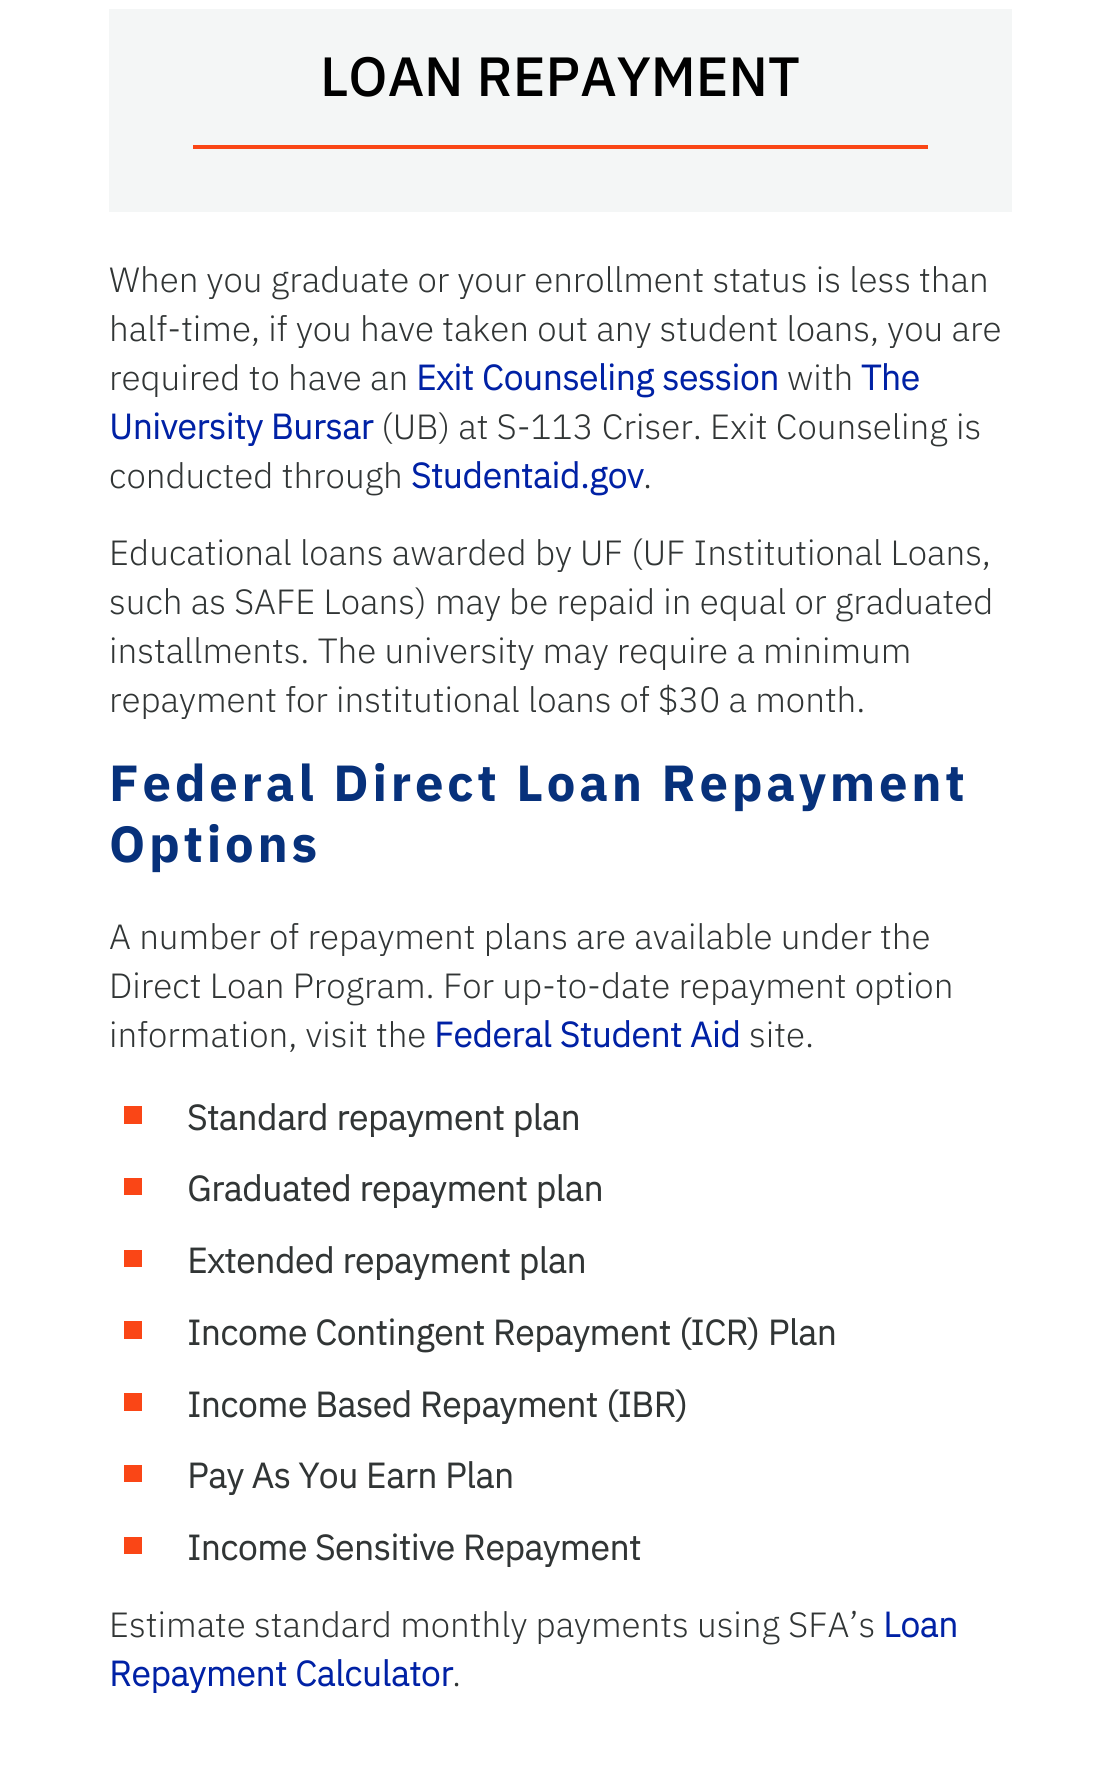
#include <cairo.h>
#include <math.h>
#include <stddef.h>

static cairo_t *ctx;

static void use_color(int r, int g, int b) {
    cairo_set_source_rgb(ctx, r / 255.0, g / 255.0, b / 255.0);
}

static void spaced_text(double x, double y, const char *s, double letter, double word) {
    cairo_move_to(ctx, x, y);
    while (*s) {
        char ch[5] = {0};
        int n = 0;
        do ch[n++] = *s++; while ((*s & 0xC0) == 0x80);
        cairo_show_text(ctx, ch);
        cairo_rel_move_to(ctx, letter + word * (*ch == ' '), 0);
    }
}

int main(void) {
    cairo_surface_t *surface = cairo_image_surface_create(CAIRO_FORMAT_RGB24, 1120, 1770);
    ctx = cairo_create(surface);
    cairo_font_options_t *options = cairo_font_options_create();
    cairo_font_options_set_hint_metrics(options, CAIRO_HINT_METRICS_OFF);
    cairo_font_options_set_hint_style(options, CAIRO_HINT_STYLE_NONE);
    cairo_set_font_options(ctx, options);
    cairo_set_miter_limit(ctx, 4);
    use_color(255, 255, 255);
    cairo_paint(ctx);
    use_color(244, 246, 246);
    cairo_rectangle(ctx, 109, 9, 903, 203);
    cairo_fill(ctx);
    cairo_select_font_face(ctx, "IBM Plex Sans Medium", CAIRO_FONT_SLANT_NORMAL, CAIRO_FONT_WEIGHT_NORMAL);
    cairo_set_font_size(ctx, 55.25);
    use_color(0, 0, 0);
    cairo_move_to(ctx, 320, 96);
    cairo_show_text(ctx, "LOAN REPAYMENT");
    use_color(250, 70, 22);
    cairo_rectangle(ctx, 193, 145, 735, 4);
    cairo_fill(ctx);
    cairo_select_font_face(ctx, "IBM Plex Sans Light", CAIRO_FONT_SLANT_NORMAL, CAIRO_FONT_WEIGHT_NORMAL);
    cairo_set_font_size(ctx, 35);
    use_color(49, 53, 53);
    cairo_move_to(ctx, 109, 292);
    cairo_show_text(ctx, "When you graduate or your enrollment status is less than");
    cairo_move_to(ctx, 109, 341);
    cairo_show_text(ctx, "half-time, if you have taken out any student loans, you are");
    cairo_move_to(ctx, 109, 390);
    cairo_show_text(ctx, "required to have an");
    cairo_select_font_face(ctx, "IBM Plex Sans", CAIRO_FONT_SLANT_NORMAL, CAIRO_FONT_WEIGHT_BOLD);
    use_color(0, 33, 165);
    cairo_move_to(ctx, 416, 390);
    cairo_show_text(ctx, "Exit Counseling session");
    cairo_select_font_face(ctx, "IBM Plex Sans Light", CAIRO_FONT_SLANT_NORMAL, CAIRO_FONT_WEIGHT_NORMAL);
    use_color(49, 53, 53);
    cairo_move_to(ctx, 787, 390);
    cairo_show_text(ctx, "with");
    cairo_select_font_face(ctx, "IBM Plex Sans", CAIRO_FONT_SLANT_NORMAL, CAIRO_FONT_WEIGHT_BOLD);
    use_color(0, 33, 165);
    cairo_move_to(ctx, 861, 390);
    cairo_show_text(ctx, "The");
    cairo_move_to(ctx, 109, 439);
    cairo_show_text(ctx, "University Bursar");
    cairo_select_font_face(ctx, "IBM Plex Sans Light", CAIRO_FONT_SLANT_NORMAL, CAIRO_FONT_WEIGHT_NORMAL);
    use_color(49, 53, 53);
    cairo_move_to(ctx, 381, 439);
    cairo_show_text(ctx, "(UB) at S-113 Criser. Exit Counseling is");
    cairo_move_to(ctx, 109, 488);
    cairo_show_text(ctx, "conducted through");
    cairo_select_font_face(ctx, "IBM Plex Sans", CAIRO_FONT_SLANT_NORMAL, CAIRO_FONT_WEIGHT_BOLD);
    use_color(0, 33, 165);
    cairo_move_to(ctx, 411, 488);
    cairo_show_text(ctx, "Studentaid.gov");
    cairo_select_font_face(ctx, "IBM Plex Sans Light", CAIRO_FONT_SLANT_NORMAL, CAIRO_FONT_WEIGHT_NORMAL);
    use_color(49, 53, 53);
    cairo_move_to(ctx, 643, 488);
    cairo_show_text(ctx, ".");
    cairo_move_to(ctx, 109, 565);
    cairo_show_text(ctx, "Educational loans awarded by UF (UF Institutional Loans,");
    cairo_move_to(ctx, 109, 614);
    cairo_show_text(ctx, "such as SAFE Loans) may be repaid in equal or graduated");
    cairo_move_to(ctx, 109, 663);
    cairo_show_text(ctx, "installments. The university may require a minimum");
    cairo_move_to(ctx, 109, 712);
    cairo_show_text(ctx, "repayment for institutional loans of $30 a month.");
    cairo_select_font_face(ctx, "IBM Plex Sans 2", CAIRO_FONT_SLANT_NORMAL, CAIRO_FONT_WEIGHT_BOLD);
    cairo_set_font_size(ctx, 50.75);
    use_color(7, 49, 123);
    spaced_text(109, 801, "Federal Direct Loan Repayment", 3.75, 0);
    spaced_text(109, 862, "Options", 3.75, 0);
    cairo_select_font_face(ctx, "IBM Plex Sans Light", CAIRO_FONT_SLANT_NORMAL, CAIRO_FONT_WEIGHT_NORMAL);
    cairo_set_font_size(ctx, 35);
    use_color(49, 53, 53);
    cairo_move_to(ctx, 109, 949);
    cairo_show_text(ctx, "A number of repayment plans are available under the");
    cairo_move_to(ctx, 109, 998);
    cairo_show_text(ctx, "Direct Loan Program. For up-to-date repayment option");
    cairo_move_to(ctx, 109, 1047);
    cairo_show_text(ctx, "information, visit the");
    cairo_select_font_face(ctx, "IBM Plex Sans", CAIRO_FONT_SLANT_NORMAL, CAIRO_FONT_WEIGHT_BOLD);
    use_color(0, 33, 165);
    cairo_move_to(ctx, 434, 1047);
    cairo_show_text(ctx, "Federal Student Aid");
    cairo_select_font_face(ctx, "IBM Plex Sans Light", CAIRO_FONT_SLANT_NORMAL, CAIRO_FONT_WEIGHT_NORMAL);
    use_color(49, 53, 53);
    cairo_move_to(ctx, 749, 1047);
    cairo_show_text(ctx, "site.");
    use_color(250, 70, 22);
    cairo_rectangle(ctx, 124, 1106, 18, 18);
    cairo_fill(ctx);
    cairo_select_font_face(ctx, "IBM Plex Sans", CAIRO_FONT_SLANT_NORMAL, CAIRO_FONT_WEIGHT_BOLD);
    use_color(49, 53, 53);
    cairo_move_to(ctx, 187, 1130);
    cairo_show_text(ctx, "Standard repayment plan");
    use_color(250, 70, 22);
    cairo_rectangle(ctx, 124, 1178, 18, 17);
    cairo_fill(ctx);
    use_color(49, 53, 53);
    cairo_move_to(ctx, 187, 1201);
    cairo_show_text(ctx, "Graduated repayment plan");
    use_color(250, 70, 22);
    cairo_rectangle(ctx, 124, 1250, 18, 17);
    cairo_fill(ctx);
    use_color(49, 53, 53);
    cairo_move_to(ctx, 187, 1273);
    cairo_show_text(ctx, "Extended repayment plan");
    use_color(250, 70, 22);
    cairo_rectangle(ctx, 124, 1321, 18, 18);
    cairo_fill(ctx);
    use_color(49, 53, 53);
    cairo_move_to(ctx, 187, 1345);
    cairo_show_text(ctx, "Income Contingent Repayment (ICR) Plan");
    use_color(250, 70, 22);
    cairo_rectangle(ctx, 124, 1393, 18, 18);
    cairo_fill(ctx);
    use_color(49, 53, 53);
    cairo_move_to(ctx, 187, 1417);
    cairo_show_text(ctx, "Income Based Repayment (IBR)");
    use_color(250, 70, 22);
    cairo_rectangle(ctx, 124, 1465, 18, 17);
    cairo_fill(ctx);
    use_color(49, 53, 53);
    cairo_move_to(ctx, 187, 1488);
    cairo_show_text(ctx, "Pay As You Earn Plan");
    use_color(250, 70, 22);
    cairo_rectangle(ctx, 124, 1537, 18, 17);
    cairo_fill(ctx);
    use_color(49, 53, 53);
    cairo_move_to(ctx, 187, 1560);
    cairo_show_text(ctx, "Income Sensitive Repayment");
    cairo_select_font_face(ctx, "IBM Plex Sans Light", CAIRO_FONT_SLANT_NORMAL, CAIRO_FONT_WEIGHT_NORMAL);
    cairo_move_to(ctx, 109, 1637);
    cairo_show_text(ctx, "Estimate standard monthly payments using SFA’s");
    cairo_select_font_face(ctx, "IBM Plex Sans", CAIRO_FONT_SLANT_NORMAL, CAIRO_FONT_WEIGHT_BOLD);
    use_color(0, 33, 165);
    cairo_move_to(ctx, 883, 1637);
    cairo_show_text(ctx, "Loan");
    cairo_move_to(ctx, 109, 1686);
    cairo_show_text(ctx, "Repayment Calculator");
    cairo_select_font_face(ctx, "IBM Plex Sans Light", CAIRO_FONT_SLANT_NORMAL, CAIRO_FONT_WEIGHT_NORMAL);
    use_color(49, 53, 53);
    cairo_move_to(ctx, 452, 1686);
    cairo_show_text(ctx, ".");
    cairo_surface_write_to_png(surface, "result.png");
    cairo_font_options_destroy(options);
    cairo_destroy(ctx);
    cairo_surface_destroy(surface);
    return 0;
}
